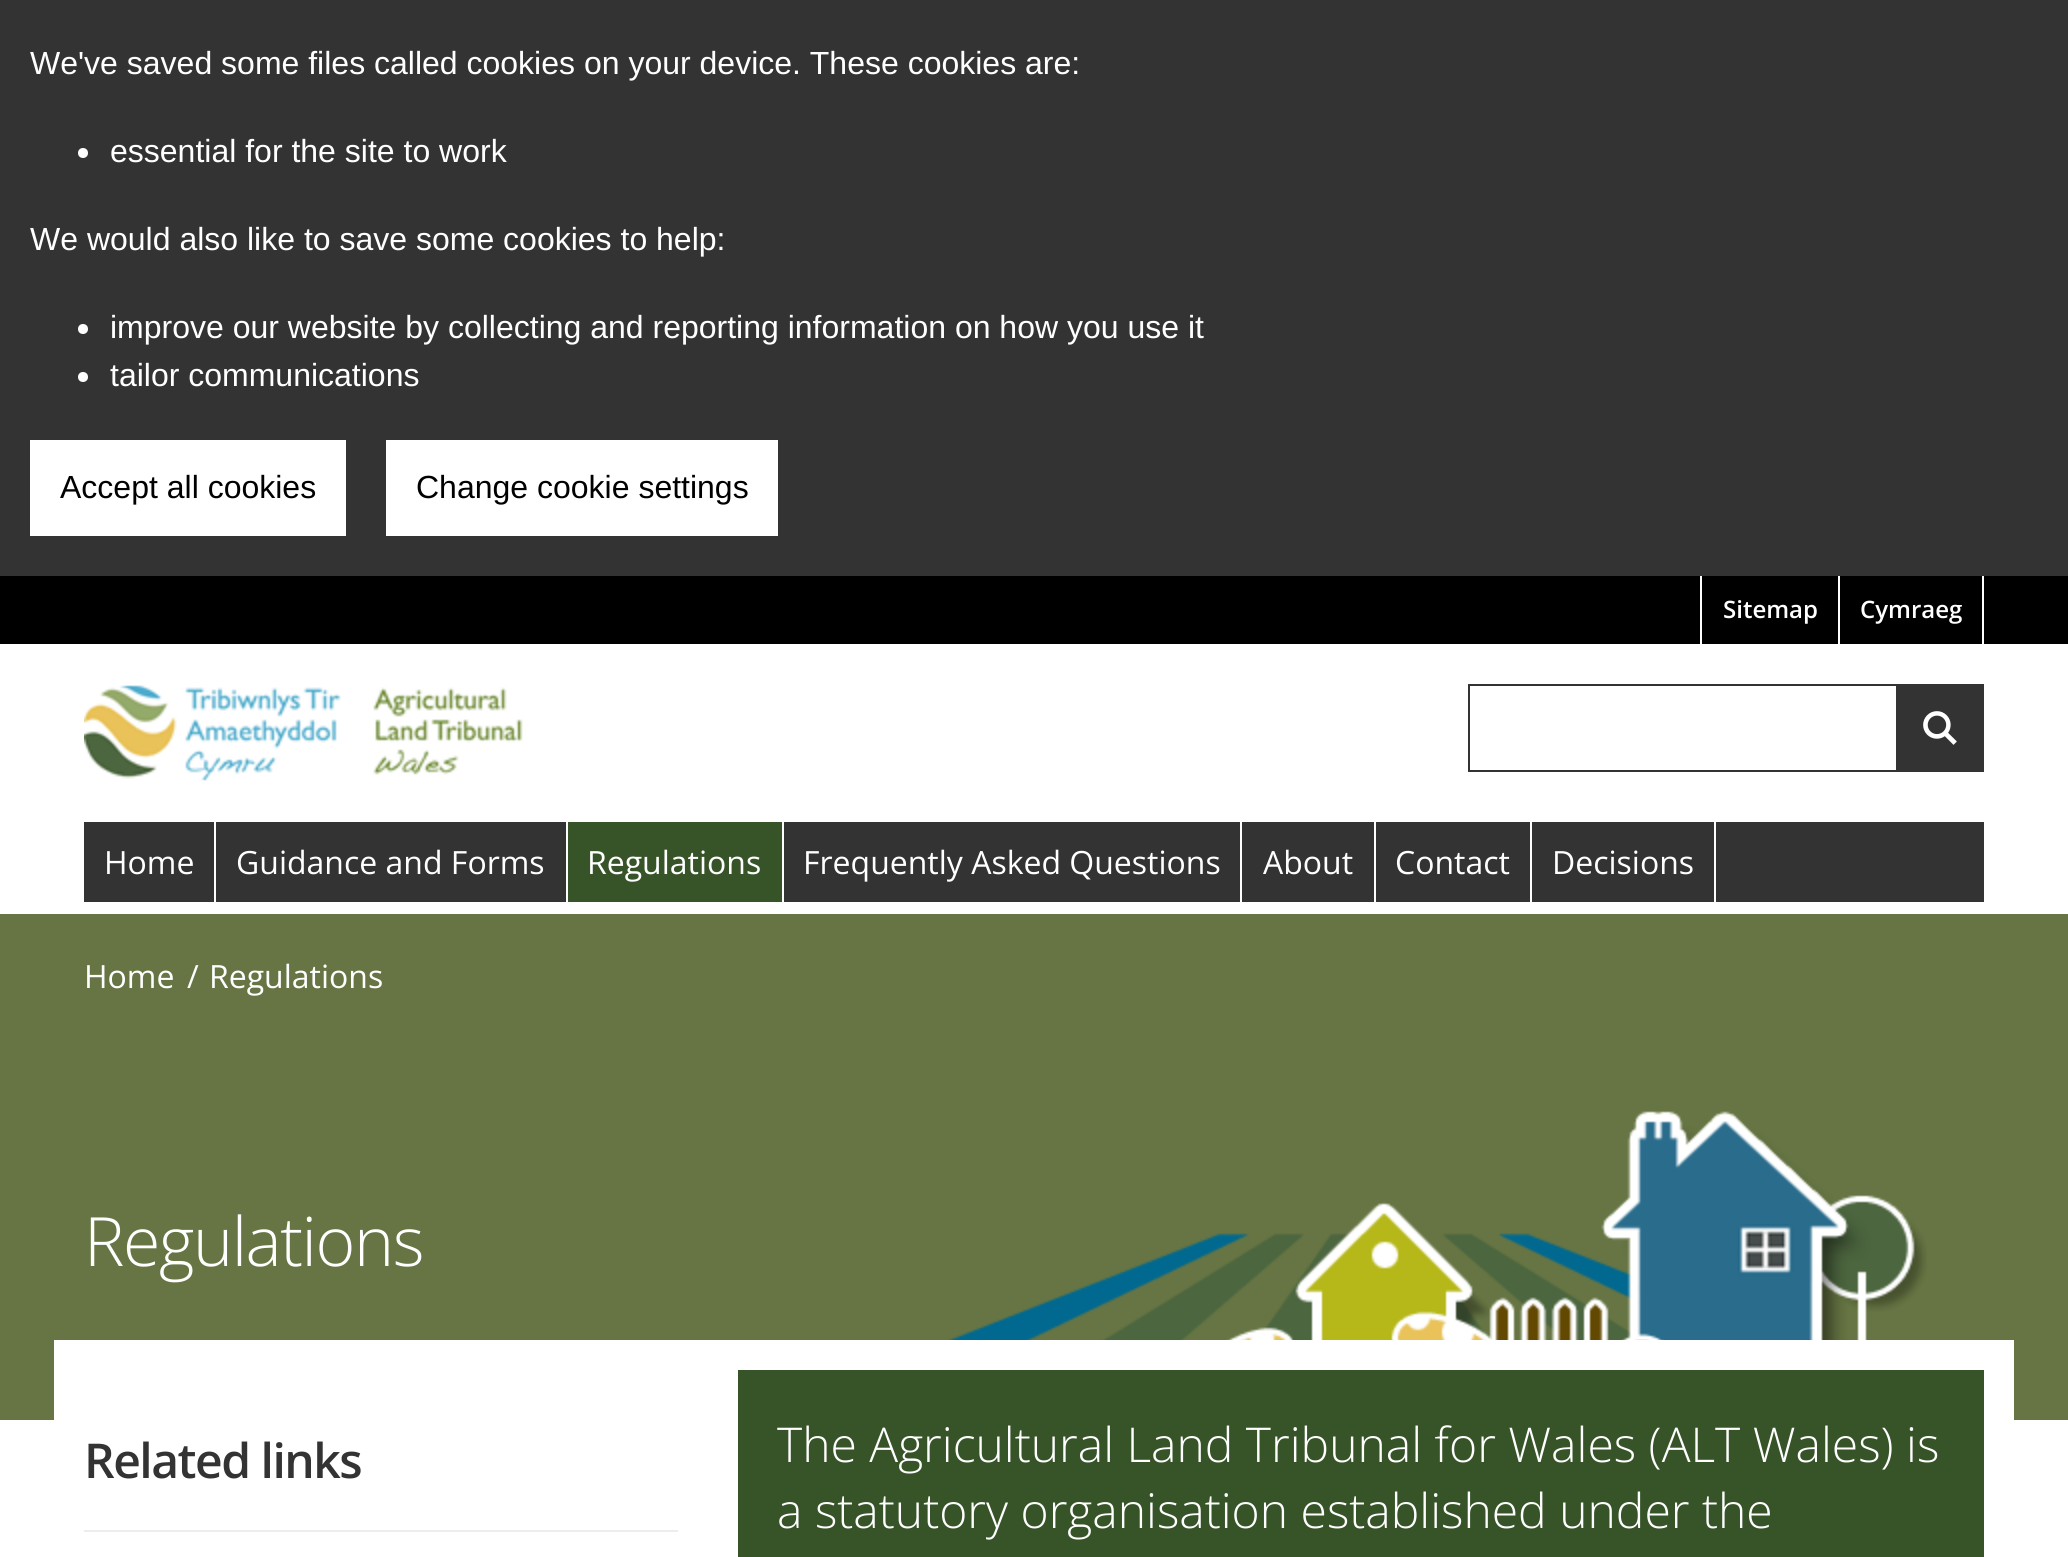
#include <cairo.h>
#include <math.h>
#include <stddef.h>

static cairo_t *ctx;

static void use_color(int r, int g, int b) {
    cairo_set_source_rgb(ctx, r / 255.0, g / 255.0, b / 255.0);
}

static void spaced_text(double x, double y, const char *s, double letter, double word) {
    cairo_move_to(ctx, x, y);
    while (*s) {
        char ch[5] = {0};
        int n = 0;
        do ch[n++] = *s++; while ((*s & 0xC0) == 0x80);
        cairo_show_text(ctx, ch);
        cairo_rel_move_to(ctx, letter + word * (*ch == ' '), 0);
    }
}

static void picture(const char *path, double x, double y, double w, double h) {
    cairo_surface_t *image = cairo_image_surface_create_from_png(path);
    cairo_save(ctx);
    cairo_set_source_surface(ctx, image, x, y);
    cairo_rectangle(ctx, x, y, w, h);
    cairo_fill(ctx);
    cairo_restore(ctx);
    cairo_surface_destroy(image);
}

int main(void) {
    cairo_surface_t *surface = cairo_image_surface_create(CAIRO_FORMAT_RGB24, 2068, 1557);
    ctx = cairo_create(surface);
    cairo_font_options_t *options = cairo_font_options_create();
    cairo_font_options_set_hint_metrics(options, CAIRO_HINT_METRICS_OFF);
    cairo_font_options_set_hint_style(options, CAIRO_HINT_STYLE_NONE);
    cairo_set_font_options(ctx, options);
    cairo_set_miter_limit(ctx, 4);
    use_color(255, 255, 255);
    cairo_paint(ctx);
    use_color(51, 51, 51);
    cairo_rectangle(ctx, 0, 0, 2068, 576);
    cairo_fill(ctx);
    cairo_select_font_face(ctx, "Liberation Sans", CAIRO_FONT_SLANT_NORMAL, CAIRO_FONT_WEIGHT_NORMAL);
    cairo_set_font_size(ctx, 32);
    use_color(255, 255, 255);
    cairo_move_to(ctx, 30, 74);
    cairo_show_text(ctx, "We've saved some files called cookies on your device. These cookies are:");
    cairo_new_path(ctx);
    cairo_arc(ctx, 83, 153, 5, 0, 2 * M_PI);
    cairo_fill(ctx);
    cairo_move_to(ctx, 110, 162);
    cairo_show_text(ctx, "essential for the site to work");
    cairo_move_to(ctx, 30, 250);
    cairo_show_text(ctx, "We would also like to save some cookies to help:");
    cairo_new_path(ctx);
    cairo_arc(ctx, 83, 329, 5, 0, 2 * M_PI);
    cairo_fill(ctx);
    cairo_move_to(ctx, 110, 338);
    cairo_show_text(ctx, "improve our website by collecting and reporting information on how you use it");
    cairo_new_path(ctx);
    cairo_arc(ctx, 83, 377, 5, 0, 2 * M_PI);
    cairo_fill(ctx);
    cairo_move_to(ctx, 110, 386);
    cairo_show_text(ctx, "tailor communications");
    cairo_rectangle(ctx, 30, 440, 316, 96);
    cairo_fill(ctx);
    use_color(0, 0, 0);
    cairo_move_to(ctx, 60, 498);
    cairo_show_text(ctx, "Accept all cookies");
    use_color(255, 255, 255);
    cairo_rectangle(ctx, 386, 440, 392, 96);
    cairo_fill(ctx);
    use_color(0, 0, 0);
    cairo_move_to(ctx, 416, 498);
    cairo_show_text(ctx, "Change cookie settings");
    cairo_rectangle(ctx, 0, 576, 2068, 68);
    cairo_fill(ctx);
    use_color(255, 255, 255);
    cairo_rectangle(ctx, 1700, 576, 2, 68);
    cairo_fill(ctx);
    cairo_select_font_face(ctx, "Open Sans SemiBold", CAIRO_FONT_SLANT_NORMAL, CAIRO_FONT_WEIGHT_NORMAL);
    cairo_set_font_size(ctx, 24);
    cairo_move_to(ctx, 1723, 618);
    cairo_show_text(ctx, "Sitemap");
    cairo_rectangle(ctx, 1982, 576, 2, 68);
    cairo_fill(ctx);
    cairo_rectangle(ctx, 1838, 576, 2, 68);
    cairo_fill(ctx);
    cairo_move_to(ctx, 1860, 618);
    cairo_show_text(ctx, "Cymraeg");
    picture("img1.png", 84, 685, 439, 96);
    cairo_rectangle(ctx, 1469, 685, 514, 86);
    use_color(51, 51, 51);
    cairo_stroke(ctx);
    cairo_rectangle(ctx, 1896, 686, 86, 84);
    cairo_fill(ctx);
    picture("img2.png", 1923, 711, 34, 34);
    cairo_rectangle(ctx, 84, 822, 1900, 80);
    cairo_fill(ctx);
    use_color(255, 255, 255);
    cairo_rectangle(ctx, 214, 822, 2, 80);
    cairo_fill(ctx);
    cairo_select_font_face(ctx, "Open Sans", CAIRO_FONT_SLANT_NORMAL, CAIRO_FONT_WEIGHT_NORMAL);
    cairo_set_font_size(ctx, 32);
    cairo_move_to(ctx, 104, 874);
    cairo_show_text(ctx, "Home");
    cairo_rectangle(ctx, 566, 822, 2, 80);
    cairo_fill(ctx);
    cairo_move_to(ctx, 236, 874);
    cairo_show_text(ctx, "Guidance and Forms");
    cairo_rectangle(ctx, 782, 822, 2, 80);
    cairo_fill(ctx);
    use_color(55, 84, 40);
    cairo_rectangle(ctx, 568, 822, 214, 80);
    cairo_fill(ctx);
    use_color(255, 255, 255);
    cairo_move_to(ctx, 587, 874);
    cairo_show_text(ctx, "Regulations");
    cairo_rectangle(ctx, 1240, 822, 2, 80);
    cairo_fill(ctx);
    cairo_move_to(ctx, 803, 874);
    cairo_show_text(ctx, "Frequently Asked Questions");
    cairo_rectangle(ctx, 1374, 822, 2, 80);
    cairo_fill(ctx);
    cairo_move_to(ctx, 1263, 874);
    cairo_show_text(ctx, "About");
    cairo_rectangle(ctx, 1530, 822, 2, 80);
    cairo_fill(ctx);
    cairo_move_to(ctx, 1395, 874);
    cairo_show_text(ctx, "Contact");
    cairo_rectangle(ctx, 1714, 822, 2, 80);
    cairo_fill(ctx);
    cairo_move_to(ctx, 1552, 874);
    cairo_show_text(ctx, "Decisions");
    use_color(102, 117, 67);
    cairo_rectangle(ctx, 0, 914, 2068, 506);
    cairo_fill(ctx);
    use_color(255, 255, 255);
    cairo_move_to(ctx, 84, 988);
    cairo_show_text(ctx, "Home");
    cairo_move_to(ctx, 187, 988);
    cairo_show_text(ctx, "/");
    cairo_move_to(ctx, 209, 988);
    cairo_show_text(ctx, "Regulations");
    picture("img3.png", 945, 1111, 982, 229);
    cairo_select_font_face(ctx, "Open Sans Light", CAIRO_FONT_SLANT_NORMAL, CAIRO_FONT_WEIGHT_NORMAL);
    cairo_set_font_size(ctx, 68);
    spaced_text(84, 1266, "Regulations", -1.4, 0);
    cairo_rectangle(ctx, 54, 1340, 1960, 80);
    cairo_fill(ctx);
    cairo_select_font_face(ctx, "Open Sans SemiBold", CAIRO_FONT_SLANT_NORMAL, CAIRO_FONT_WEIGHT_NORMAL);
    cairo_set_font_size(ctx, 48);
    use_color(51, 51, 51);
    spaced_text(84, 1478, "Related links", -1.5, 0);
    use_color(237, 237, 237);
    cairo_rectangle(ctx, 84, 1530, 594, 2);
    cairo_fill(ctx);
    use_color(55, 84, 40);
    cairo_rectangle(ctx, 738, 1370, 1246, 187);
    cairo_fill(ctx);
    cairo_select_font_face(ctx, "Open Sans Light", CAIRO_FONT_SLANT_NORMAL, CAIRO_FONT_WEIGHT_NORMAL);
    use_color(255, 255, 255);
    cairo_move_to(ctx, 777, 1462);
    cairo_show_text(ctx, "The Agricultural Land Tribunal for Wales (ALT Wales) is");
    cairo_move_to(ctx, 777, 1528);
    cairo_show_text(ctx, "a statutory organisation established under the");
    cairo_surface_write_to_png(surface, "result.png");
    cairo_font_options_destroy(options);
    cairo_destroy(ctx);
    cairo_surface_destroy(surface);
    return 0;
}
